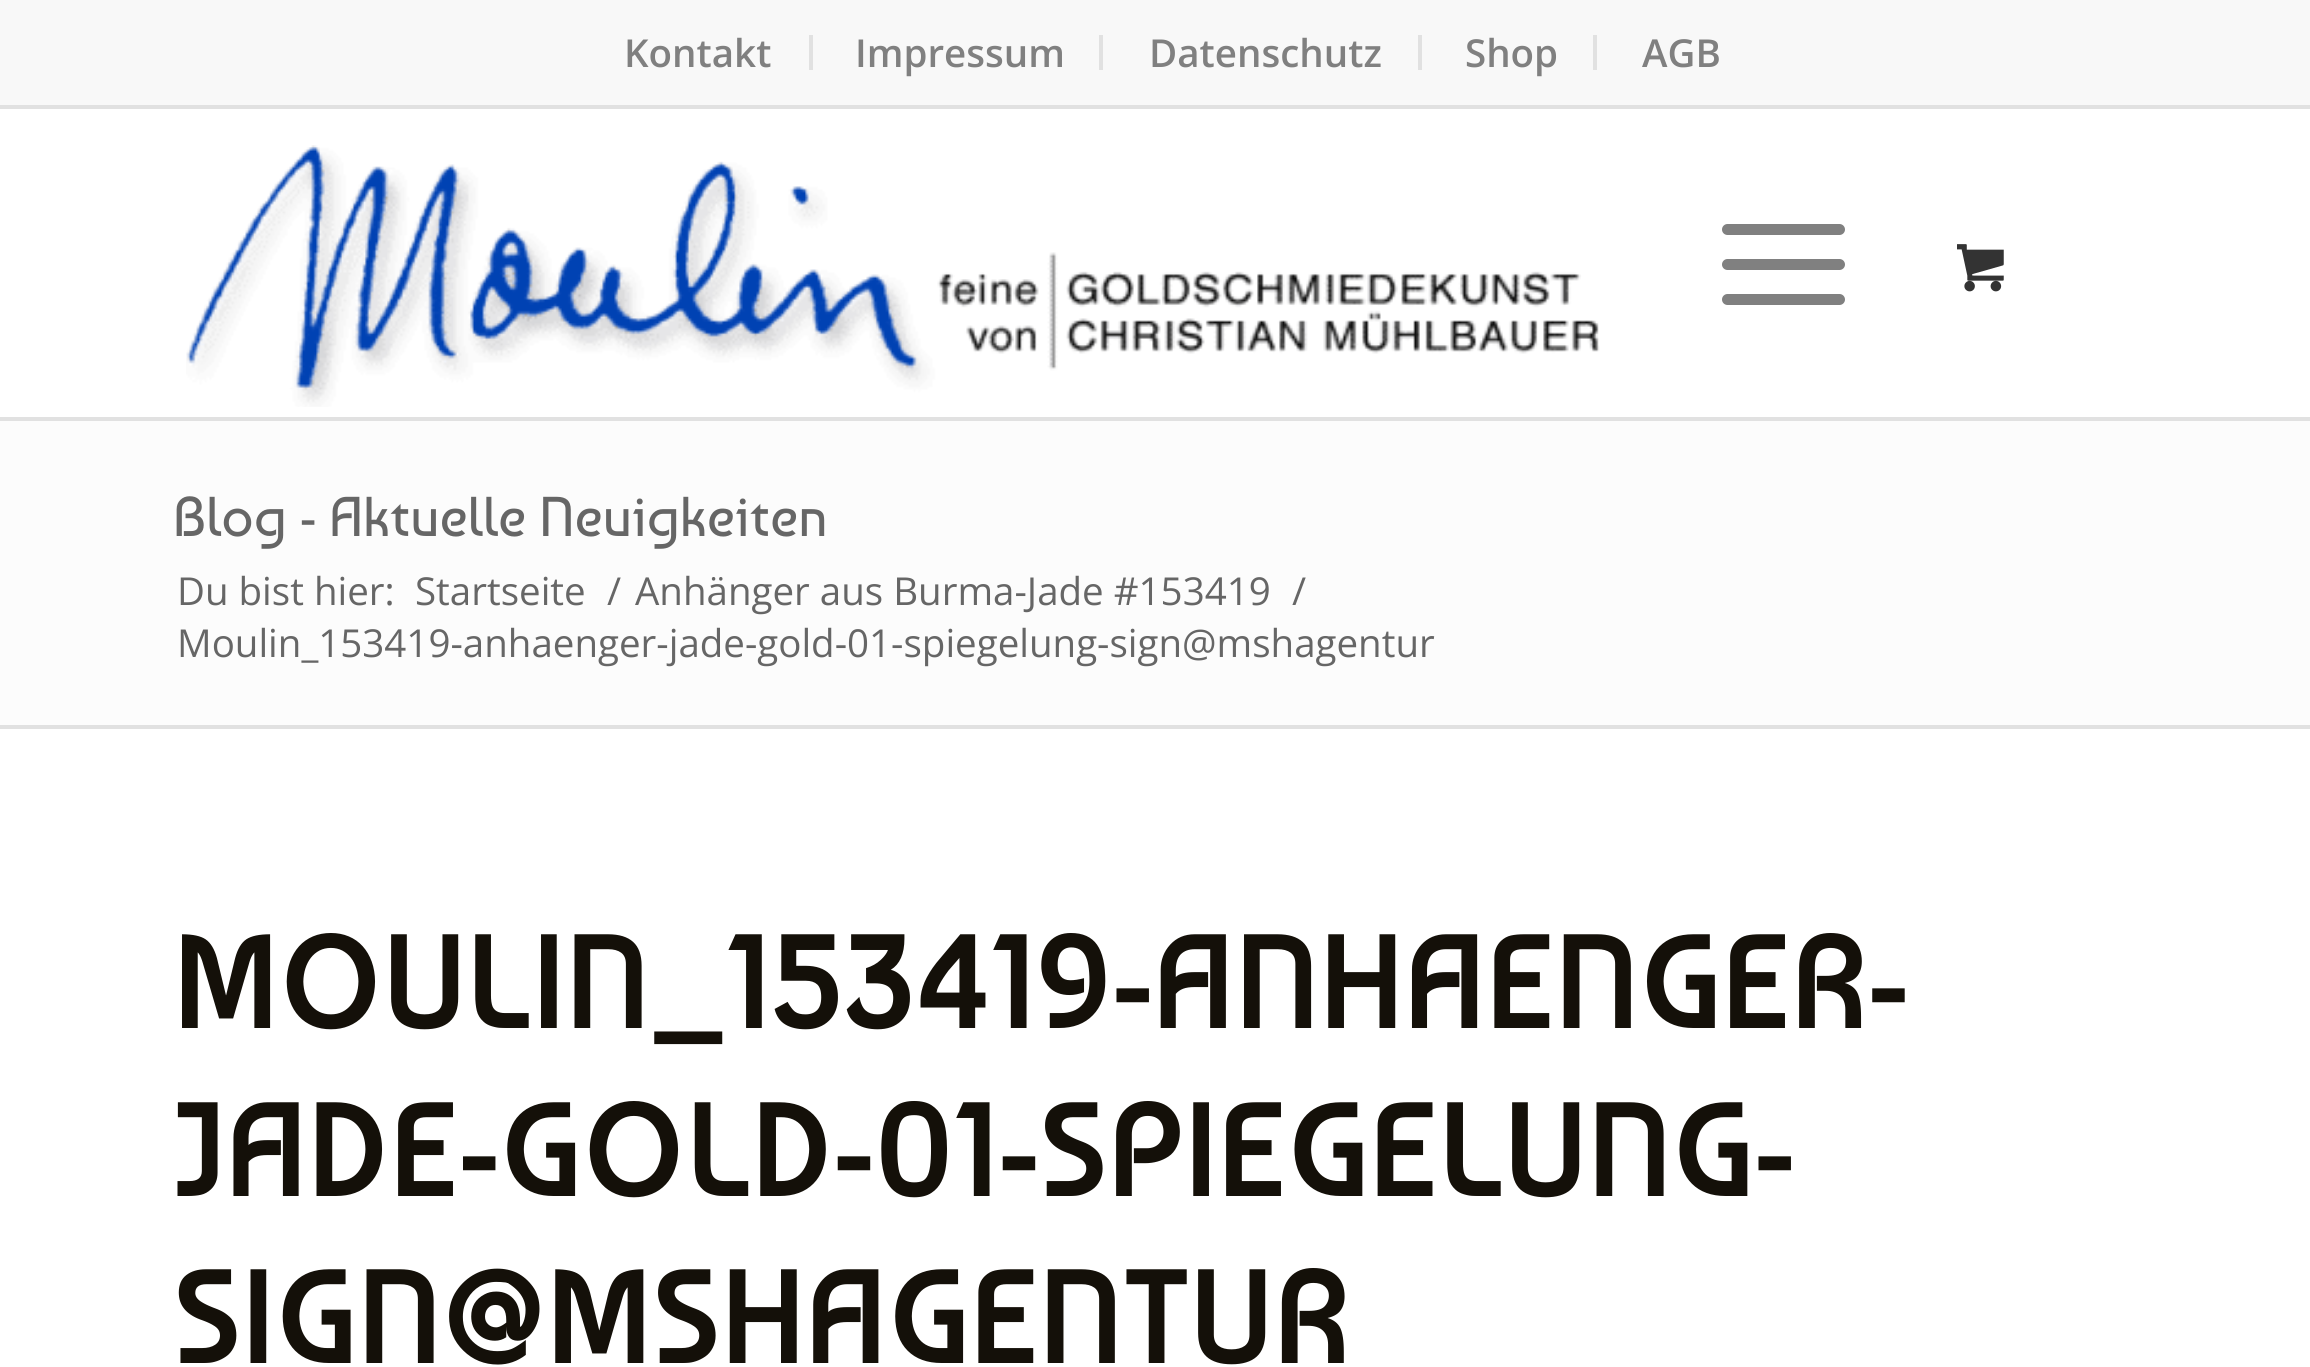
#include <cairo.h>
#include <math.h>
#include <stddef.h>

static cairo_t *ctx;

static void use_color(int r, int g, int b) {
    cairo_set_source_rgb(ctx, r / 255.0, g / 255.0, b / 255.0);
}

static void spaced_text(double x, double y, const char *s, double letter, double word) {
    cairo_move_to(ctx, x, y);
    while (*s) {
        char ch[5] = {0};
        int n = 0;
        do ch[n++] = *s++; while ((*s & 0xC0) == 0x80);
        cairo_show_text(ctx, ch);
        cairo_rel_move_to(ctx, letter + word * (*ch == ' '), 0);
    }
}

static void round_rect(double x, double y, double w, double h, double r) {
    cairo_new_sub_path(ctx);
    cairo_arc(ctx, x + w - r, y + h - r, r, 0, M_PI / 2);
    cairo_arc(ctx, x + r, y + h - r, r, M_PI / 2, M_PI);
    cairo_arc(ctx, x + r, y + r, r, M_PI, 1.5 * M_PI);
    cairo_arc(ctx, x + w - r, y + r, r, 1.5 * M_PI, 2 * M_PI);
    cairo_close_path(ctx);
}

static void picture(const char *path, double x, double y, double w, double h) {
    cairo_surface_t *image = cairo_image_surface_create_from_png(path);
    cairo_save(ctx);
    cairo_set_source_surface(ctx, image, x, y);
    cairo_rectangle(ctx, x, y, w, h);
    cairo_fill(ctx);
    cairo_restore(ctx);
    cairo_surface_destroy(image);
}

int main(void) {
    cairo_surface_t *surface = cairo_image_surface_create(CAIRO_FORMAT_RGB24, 2310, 1367);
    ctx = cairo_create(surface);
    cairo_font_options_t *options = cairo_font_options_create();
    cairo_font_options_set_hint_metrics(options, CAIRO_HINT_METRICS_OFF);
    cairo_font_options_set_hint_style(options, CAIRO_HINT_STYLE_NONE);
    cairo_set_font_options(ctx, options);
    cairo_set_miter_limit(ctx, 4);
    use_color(255, 255, 255);
    cairo_paint(ctx);
    use_color(248, 248, 248);
    cairo_rectangle(ctx, 0, 0, 2310, 105);
    cairo_fill(ctx);
    use_color(225, 225, 225);
    cairo_rectangle(ctx, 0, 105, 2310, 4);
    cairo_fill(ctx);
    cairo_rectangle(ctx, 809, 35, 4, 35);
    cairo_fill(ctx);
    cairo_select_font_face(ctx, "Open Sans SemiBold", CAIRO_FONT_SLANT_NORMAL, CAIRO_FONT_WEIGHT_NORMAL);
    cairo_set_font_size(ctx, 38.5);
    use_color(128, 128, 128);
    cairo_move_to(ctx, 624, 67);
    cairo_show_text(ctx, "Kontakt");
    use_color(225, 225, 225);
    cairo_rectangle(ctx, 1099, 35, 4, 35);
    cairo_fill(ctx);
    use_color(128, 128, 128);
    cairo_move_to(ctx, 855, 67);
    cairo_show_text(ctx, "Impressum");
    use_color(225, 225, 225);
    cairo_rectangle(ctx, 1418, 35, 4, 35);
    cairo_fill(ctx);
    use_color(128, 128, 128);
    cairo_move_to(ctx, 1149, 67);
    cairo_show_text(ctx, "Datenschutz");
    use_color(225, 225, 225);
    cairo_rectangle(ctx, 1593, 35, 4, 35);
    cairo_fill(ctx);
    use_color(128, 128, 128);
    cairo_move_to(ctx, 1465, 67);
    cairo_show_text(ctx, "Shop");
    cairo_move_to(ctx, 1642, 67);
    cairo_show_text(ctx, "AGB");
    use_color(225, 225, 225);
    cairo_rectangle(ctx, 0, 417, 2310, 4);
    cairo_fill(ctx);
    picture("img1.png", 186, 145, 1414, 262);
    use_color(128, 128, 128);
    round_rect(1722, 259, 123, 11, 5.5);
    cairo_fill(ctx);
    round_rect(1722, 224, 123, 11, 5.5);
    cairo_fill(ctx);
    round_rect(1722, 294, 123, 11, 5.5);
    cairo_fill(ctx);
    picture("img2.png", 1957, 244, 47, 48);
    use_color(252, 252, 252);
    cairo_rectangle(ctx, 0, 421, 2310, 304);
    cairo_fill(ctx);
    cairo_select_font_face(ctx, "Baumans", CAIRO_FONT_SLANT_NORMAL, CAIRO_FONT_WEIGHT_NORMAL);
    cairo_set_font_size(ctx, 56);
    use_color(102, 102, 102);
    cairo_move_to(ctx, 173, 536);
    cairo_show_text(ctx, "Blog - Aktuelle Neuigkeiten");
    cairo_select_font_face(ctx, "Open Sans", CAIRO_FONT_SLANT_NORMAL, CAIRO_FONT_WEIGHT_NORMAL);
    cairo_set_font_size(ctx, 38.5);
    cairo_move_to(ctx, 177, 605);
    cairo_show_text(ctx, "Du bist hier:");
    cairo_move_to(ctx, 415, 605);
    cairo_show_text(ctx, "Startseite");
    cairo_move_to(ctx, 607, 605);
    cairo_show_text(ctx, "/");
    cairo_move_to(ctx, 635, 605);
    cairo_show_text(ctx, "Anhänger aus Burma-Jade #153419");
    cairo_move_to(ctx, 1292, 605);
    cairo_show_text(ctx, "/");
    cairo_move_to(ctx, 177, 657);
    cairo_show_text(ctx, "Moulin_153419-anhaenger-jade-gold-01-spiegelung-sign@mshagentur");
    use_color(225, 225, 225);
    cairo_rectangle(ctx, 0, 725, 2310, 4);
    cairo_fill(ctx);
    cairo_select_font_face(ctx, "Baumans", CAIRO_FONT_SLANT_NORMAL, CAIRO_FONT_WEIGHT_BOLD);
    cairo_set_font_size(ctx, 128.75);
    use_color(20, 16, 9);
    spaced_text(173, 1028, "MOULIN_153419-ANHAENGER-", 3.5, 0);
    spaced_text(173, 1196, "JADE-GOLD-01-SPIEGELUNG-", 3.5, 0);
    spaced_text(173, 1363, "SIGN@MSHAGENTUR", 3.5, 0);
    cairo_surface_write_to_png(surface, "result.png");
    cairo_font_options_destroy(options);
    cairo_destroy(ctx);
    cairo_surface_destroy(surface);
    return 0;
}
